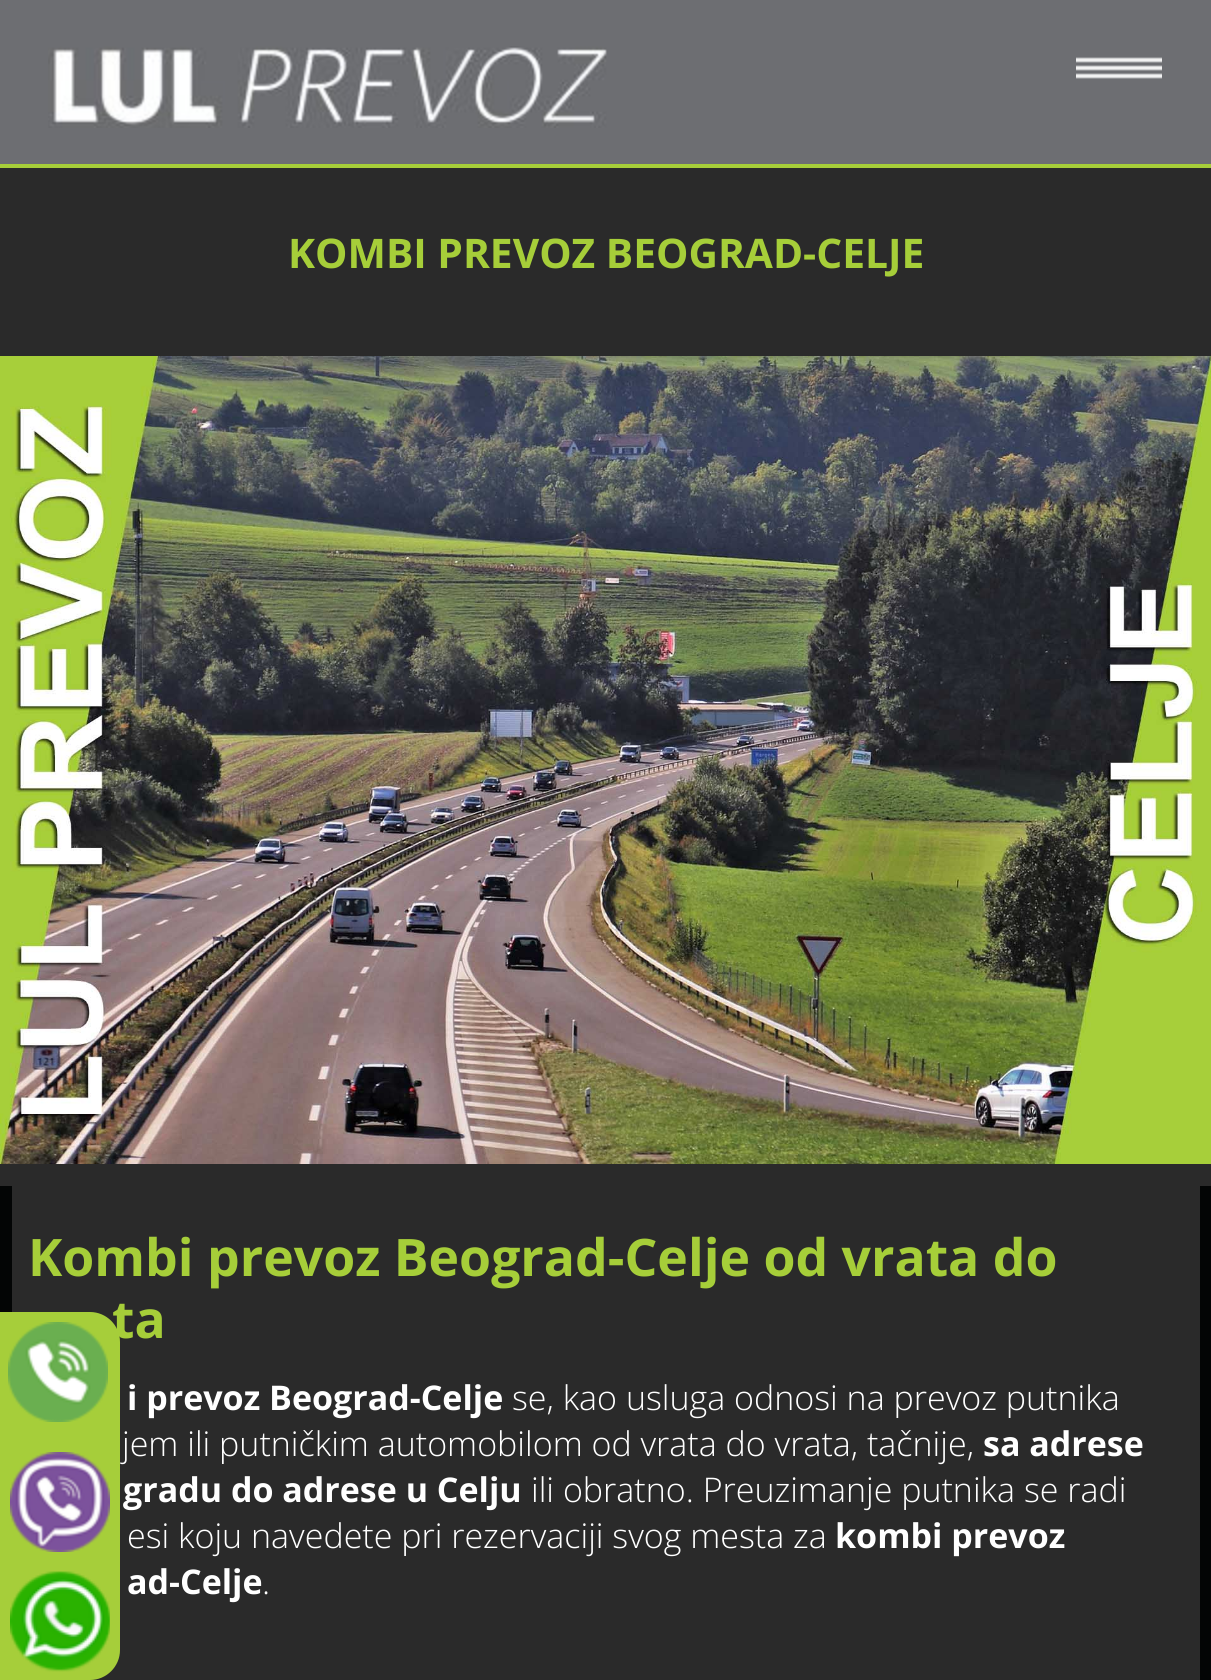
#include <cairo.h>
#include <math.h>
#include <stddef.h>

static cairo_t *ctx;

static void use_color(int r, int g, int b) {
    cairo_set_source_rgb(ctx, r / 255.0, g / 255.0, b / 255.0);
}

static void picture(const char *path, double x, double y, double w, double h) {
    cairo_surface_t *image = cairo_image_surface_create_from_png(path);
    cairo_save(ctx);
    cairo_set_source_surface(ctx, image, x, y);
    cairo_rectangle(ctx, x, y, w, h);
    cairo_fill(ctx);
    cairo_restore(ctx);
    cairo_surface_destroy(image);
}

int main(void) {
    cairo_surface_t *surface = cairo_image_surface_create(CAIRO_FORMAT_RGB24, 1211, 1680);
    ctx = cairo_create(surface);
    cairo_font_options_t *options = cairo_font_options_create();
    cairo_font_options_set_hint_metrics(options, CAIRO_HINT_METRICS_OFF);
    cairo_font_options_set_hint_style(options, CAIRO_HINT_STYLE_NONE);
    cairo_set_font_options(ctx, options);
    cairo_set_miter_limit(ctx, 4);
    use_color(3, 5, 5);
    cairo_paint(ctx);
    use_color(109, 110, 114);
    cairo_rectangle(ctx, 0, 0, 1211, 164);
    cairo_fill(ctx);
    picture("img1.png", 48, 46, 559, 82);
    picture("img2.png", 1076, 57, 86, 22);
    use_color(42, 42, 42);
    cairo_rectangle(ctx, 0, 168, 1211, 188);
    cairo_fill(ctx);
    use_color(166, 206, 57);
    cairo_rectangle(ctx, 0, 164, 1211, 4);
    cairo_fill(ctx);
    cairo_select_font_face(ctx, "Open Sans", CAIRO_FONT_SLANT_NORMAL, CAIRO_FONT_WEIGHT_BOLD);
    cairo_set_font_size(ctx, 40.75);
    cairo_move_to(ctx, 288, 268);
    cairo_show_text(ctx, "KOMBI PREVOZ BEOGRAD-CELJE");
    use_color(42, 42, 42);
    cairo_rectangle(ctx, 0, 1164, 1211, 22);
    cairo_fill(ctx);
    picture("img3.png", 0, 356, 1211, 808);
    cairo_rectangle(ctx, 12, 1186, 1188, 494);
    cairo_fill(ctx);
    cairo_set_font_size(ctx, 51.7);
    use_color(166, 206, 57);
    cairo_move_to(ctx, 112, 1338);
    cairo_show_text(ctx, "ta");
    use_color(166, 206, 58);
    cairo_new_path(ctx);
    cairo_move_to(ctx, 0, 1312);
    cairo_line_to(ctx, 90, 1312);
    cairo_curve_to(ctx, 106.5, 1312, 120, 1325.5, 120, 1342);
    cairo_line_to(ctx, 120, 1650);
    cairo_curve_to(ctx, 120, 1666.5, 106.5, 1680, 90, 1680);
    cairo_line_to(ctx, 0, 1680);
    cairo_close_path(ctx);
    cairo_fill(ctx);
    picture("img4.png", 8, 1322, 100, 100);
    picture("img5.png", 10, 1452, 100, 100);
    picture("img6.png", 10, 1571, 100, 101);
    use_color(166, 206, 57);
    cairo_move_to(ctx, 28, 1276);
    cairo_show_text(ctx, "Kombi prevoz Beograd-Celje od vrata do");
    cairo_set_font_size(ctx, 34);
    use_color(255, 255, 255);
    cairo_move_to(ctx, 127, 1410);
    cairo_show_text(ctx, "i prevoz Beograd-Celje");
    cairo_select_font_face(ctx, "Open Sans Light", CAIRO_FONT_SLANT_NORMAL, CAIRO_FONT_WEIGHT_NORMAL);
    cairo_move_to(ctx, 512, 1410);
    cairo_show_text(ctx, "se, kao usluga odnosi na prevoz putnika");
    cairo_move_to(ctx, 122, 1456);
    cairo_show_text(ctx, "jem ili putničkim automobilom od vrata do vrata, tačnije,");
    cairo_select_font_face(ctx, "Open Sans", CAIRO_FONT_SLANT_NORMAL, CAIRO_FONT_WEIGHT_BOLD);
    cairo_move_to(ctx, 983, 1456);
    cairo_show_text(ctx, "sa adrese");
    cairo_move_to(ctx, 123, 1502);
    cairo_show_text(ctx, "gradu do adrese u Celju");
    cairo_select_font_face(ctx, "Open Sans Light", CAIRO_FONT_SLANT_NORMAL, CAIRO_FONT_WEIGHT_NORMAL);
    cairo_move_to(ctx, 531, 1502);
    cairo_show_text(ctx, "ili obratno. Preuzimanje putnika se radi");
    cairo_move_to(ctx, 127, 1548);
    cairo_show_text(ctx, "esi koju navedete pri rezervaciji svog mesta za");
    cairo_select_font_face(ctx, "Open Sans", CAIRO_FONT_SLANT_NORMAL, CAIRO_FONT_WEIGHT_BOLD);
    cairo_move_to(ctx, 835, 1548);
    cairo_show_text(ctx, "kombi prevoz");
    cairo_move_to(ctx, 127, 1594);
    cairo_show_text(ctx, "ad-Celje");
    cairo_select_font_face(ctx, "Open Sans Light", CAIRO_FONT_SLANT_NORMAL, CAIRO_FONT_WEIGHT_NORMAL);
    cairo_move_to(ctx, 262, 1594);
    cairo_show_text(ctx, ".");
    cairo_surface_write_to_png(surface, "result.png");
    cairo_font_options_destroy(options);
    cairo_destroy(ctx);
    cairo_surface_destroy(surface);
    return 0;
}
